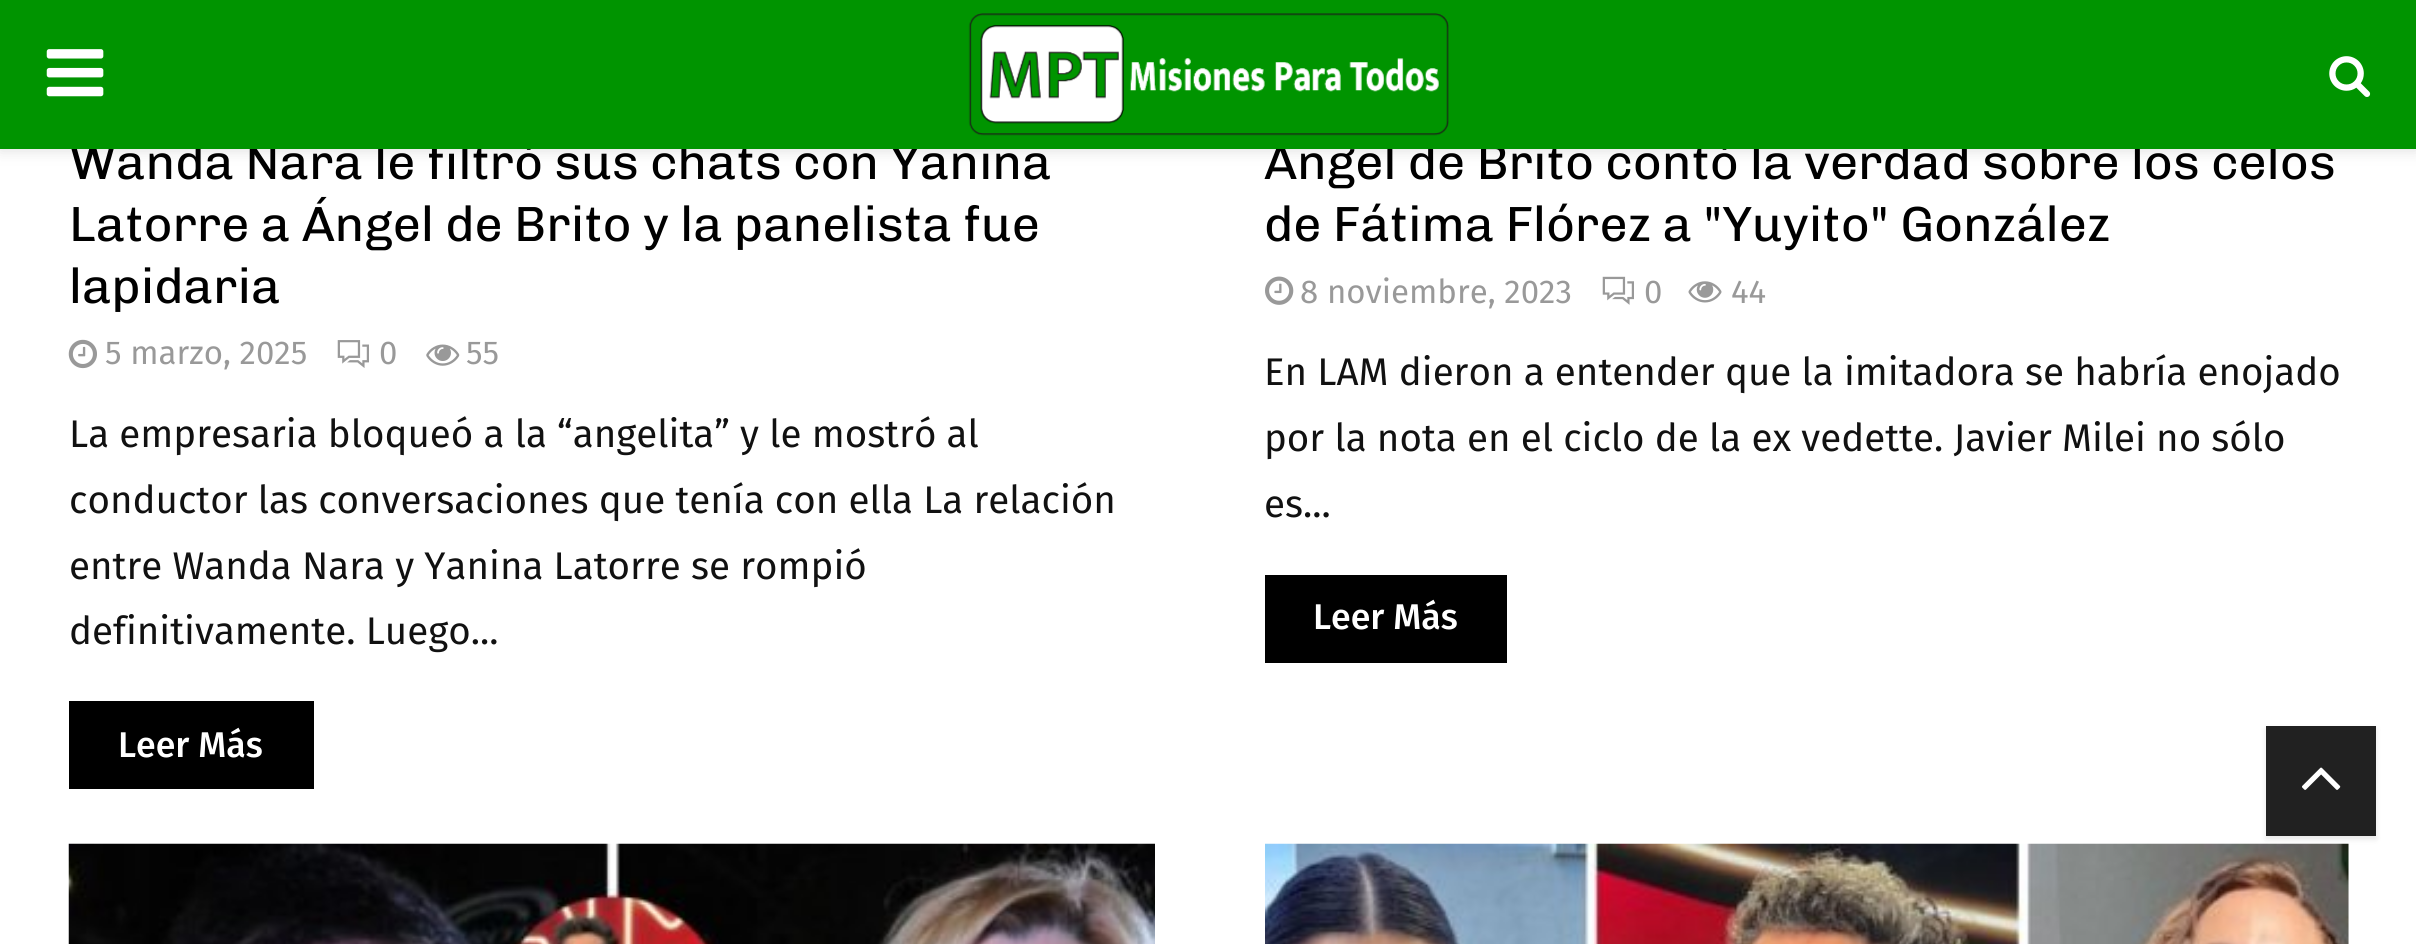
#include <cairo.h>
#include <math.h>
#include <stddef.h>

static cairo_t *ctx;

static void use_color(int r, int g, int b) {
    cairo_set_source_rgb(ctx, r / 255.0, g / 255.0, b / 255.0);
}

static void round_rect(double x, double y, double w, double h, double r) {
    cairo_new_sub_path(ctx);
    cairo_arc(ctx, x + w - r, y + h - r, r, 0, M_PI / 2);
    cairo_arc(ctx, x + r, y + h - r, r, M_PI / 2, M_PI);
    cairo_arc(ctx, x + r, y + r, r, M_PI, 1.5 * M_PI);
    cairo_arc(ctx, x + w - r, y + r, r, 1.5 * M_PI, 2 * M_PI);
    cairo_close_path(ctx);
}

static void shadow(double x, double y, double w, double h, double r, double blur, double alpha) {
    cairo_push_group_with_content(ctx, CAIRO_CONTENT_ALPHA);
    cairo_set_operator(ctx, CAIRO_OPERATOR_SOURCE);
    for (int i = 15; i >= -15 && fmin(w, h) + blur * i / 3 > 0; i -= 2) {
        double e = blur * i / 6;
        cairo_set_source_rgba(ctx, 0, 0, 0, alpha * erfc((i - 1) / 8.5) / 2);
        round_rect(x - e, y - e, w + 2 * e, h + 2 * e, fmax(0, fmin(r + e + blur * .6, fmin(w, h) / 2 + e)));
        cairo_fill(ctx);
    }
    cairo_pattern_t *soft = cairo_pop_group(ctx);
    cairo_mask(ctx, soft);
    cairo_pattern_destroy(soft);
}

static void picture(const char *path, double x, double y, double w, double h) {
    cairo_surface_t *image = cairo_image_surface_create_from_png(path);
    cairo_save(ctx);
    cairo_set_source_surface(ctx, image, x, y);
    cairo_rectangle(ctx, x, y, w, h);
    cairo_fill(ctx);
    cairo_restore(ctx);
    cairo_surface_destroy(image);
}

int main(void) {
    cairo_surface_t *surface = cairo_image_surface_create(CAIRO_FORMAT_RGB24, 2416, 944);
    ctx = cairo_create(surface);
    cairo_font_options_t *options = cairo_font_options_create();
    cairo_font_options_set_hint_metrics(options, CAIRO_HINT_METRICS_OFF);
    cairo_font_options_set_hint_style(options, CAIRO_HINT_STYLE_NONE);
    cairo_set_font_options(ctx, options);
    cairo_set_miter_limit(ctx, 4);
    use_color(255, 255, 255);
    cairo_paint(ctx);
    use_color(190, 190, 190);
    shadow(0, 3, 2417, 148, 0, 7, 0.46);
    cairo_select_font_face(ctx, "Chivo", CAIRO_FONT_SLANT_NORMAL, CAIRO_FONT_WEIGHT_NORMAL);
    cairo_set_font_size(ctx, 49.5);
    use_color(0, 0, 0);
    cairo_move_to(ctx, 69, 179);
    cairo_show_text(ctx, "Wanda Nara le filtró sus chats con Yanina");
    cairo_move_to(ctx, 1264, 179);
    cairo_show_text(ctx, "Ángel de Brito contó la verdad sobre los celos");
    use_color(0, 148, 0);
    cairo_rectangle(ctx, 0, 0, 2416, 149);
    cairo_fill(ctx);
    picture("img1.png", 46, 49, 58, 48);
    picture("img2.png", 968, 13, 481, 123);
    picture("img3.png", 2329, 56, 42, 41);
    use_color(0, 0, 0);
    cairo_move_to(ctx, 69, 241);
    cairo_show_text(ctx, "Latorre a Ángel de Brito y la panelista fue");
    cairo_move_to(ctx, 69, 303);
    cairo_show_text(ctx, "lapidaria");
    picture("img4.png", 68, 339, 29, 30);
    cairo_select_font_face(ctx, "Fira Sans", CAIRO_FONT_SLANT_NORMAL, CAIRO_FONT_WEIGHT_NORMAL);
    cairo_set_font_size(ctx, 33);
    use_color(153, 153, 153);
    cairo_move_to(ctx, 105, 364);
    cairo_show_text(ctx, "5 marzo, 2025");
    picture("img5.png", 337, 340, 32, 28);
    cairo_move_to(ctx, 379, 364);
    cairo_show_text(ctx, "0");
    picture("img6.png", 426, 344, 34, 22);
    cairo_move_to(ctx, 466, 364);
    cairo_show_text(ctx, "55");
    cairo_set_font_size(ctx, 38.5);
    use_color(17, 17, 17);
    cairo_move_to(ctx, 69, 447);
    cairo_show_text(ctx, "La empresaria bloqueó a la “angelita” y le mostró al");
    cairo_move_to(ctx, 69, 513);
    cairo_show_text(ctx, "conductor las conversaciones que tenía con ella La relación");
    cairo_move_to(ctx, 69, 579);
    cairo_show_text(ctx, "entre Wanda Nara y Yanina Latorre se rompió");
    cairo_move_to(ctx, 69, 644);
    cairo_show_text(ctx, "definitivamente. Luego...");
    use_color(0, 0, 0);
    cairo_rectangle(ctx, 69, 701, 245, 88);
    cairo_fill(ctx);
    cairo_select_font_face(ctx, "Fira Sans Medium", CAIRO_FONT_SLANT_NORMAL, CAIRO_FONT_WEIGHT_NORMAL);
    cairo_set_font_size(ctx, 35.75);
    use_color(255, 255, 255);
    cairo_move_to(ctx, 118, 757);
    cairo_show_text(ctx, "Leer Más");
    cairo_select_font_face(ctx, "Chivo", CAIRO_FONT_SLANT_NORMAL, CAIRO_FONT_WEIGHT_NORMAL);
    cairo_set_font_size(ctx, 49.5);
    use_color(0, 0, 0);
    cairo_move_to(ctx, 1264, 241);
    cairo_show_text(ctx, "de Fátima Flórez a \"Yuyito\" González");
    picture("img7.png", 1265, 276, 29, 29);
    cairo_select_font_face(ctx, "Fira Sans", CAIRO_FONT_SLANT_NORMAL, CAIRO_FONT_WEIGHT_NORMAL);
    cairo_set_font_size(ctx, 33);
    use_color(153, 153, 153);
    cairo_move_to(ctx, 1300, 303);
    cairo_show_text(ctx, "8 noviembre, 2023");
    picture("img8.png", 1602, 276, 32, 29);
    cairo_move_to(ctx, 1644, 303);
    cairo_show_text(ctx, "0");
    picture("img9.png", 1688, 281, 34, 22);
    cairo_move_to(ctx, 1731, 303);
    cairo_show_text(ctx, "44");
    cairo_set_font_size(ctx, 38.5);
    use_color(17, 17, 17);
    cairo_move_to(ctx, 1264, 385);
    cairo_show_text(ctx, "En LAM dieron a entender que la imitadora se habría enojado");
    cairo_move_to(ctx, 1264, 451);
    cairo_show_text(ctx, "por la nota en el ciclo de la ex vedette. Javier Milei no sólo");
    cairo_move_to(ctx, 1264, 517);
    cairo_show_text(ctx, "es...");
    use_color(0, 0, 0);
    cairo_rectangle(ctx, 1265, 575, 242, 88);
    cairo_fill(ctx);
    cairo_select_font_face(ctx, "Fira Sans Medium", CAIRO_FONT_SLANT_NORMAL, CAIRO_FONT_WEIGHT_NORMAL);
    cairo_set_font_size(ctx, 35.75);
    use_color(255, 255, 255);
    cairo_move_to(ctx, 1313, 629);
    cairo_show_text(ctx, "Leer Más");
    picture("img10.png", 68, 843, 1087, 101);
    use_color(245, 245, 245);
    cairo_rectangle(ctx, 2348, 844, 1, 100);
    cairo_fill(ctx);
    picture("img11.png", 1265, 843, 1084, 101);
    use_color(0, 0, 0);
    shadow(2266, 729, 110, 110, 0, 3, 0.1);
    use_color(33, 33, 33);
    cairo_rectangle(ctx, 2266, 726, 110, 110);
    cairo_fill(ctx);
    picture("img12.png", 2302, 767, 39, 23);
    cairo_surface_write_to_png(surface, "result.png");
    cairo_font_options_destroy(options);
    cairo_destroy(ctx);
    cairo_surface_destroy(surface);
    return 0;
}
